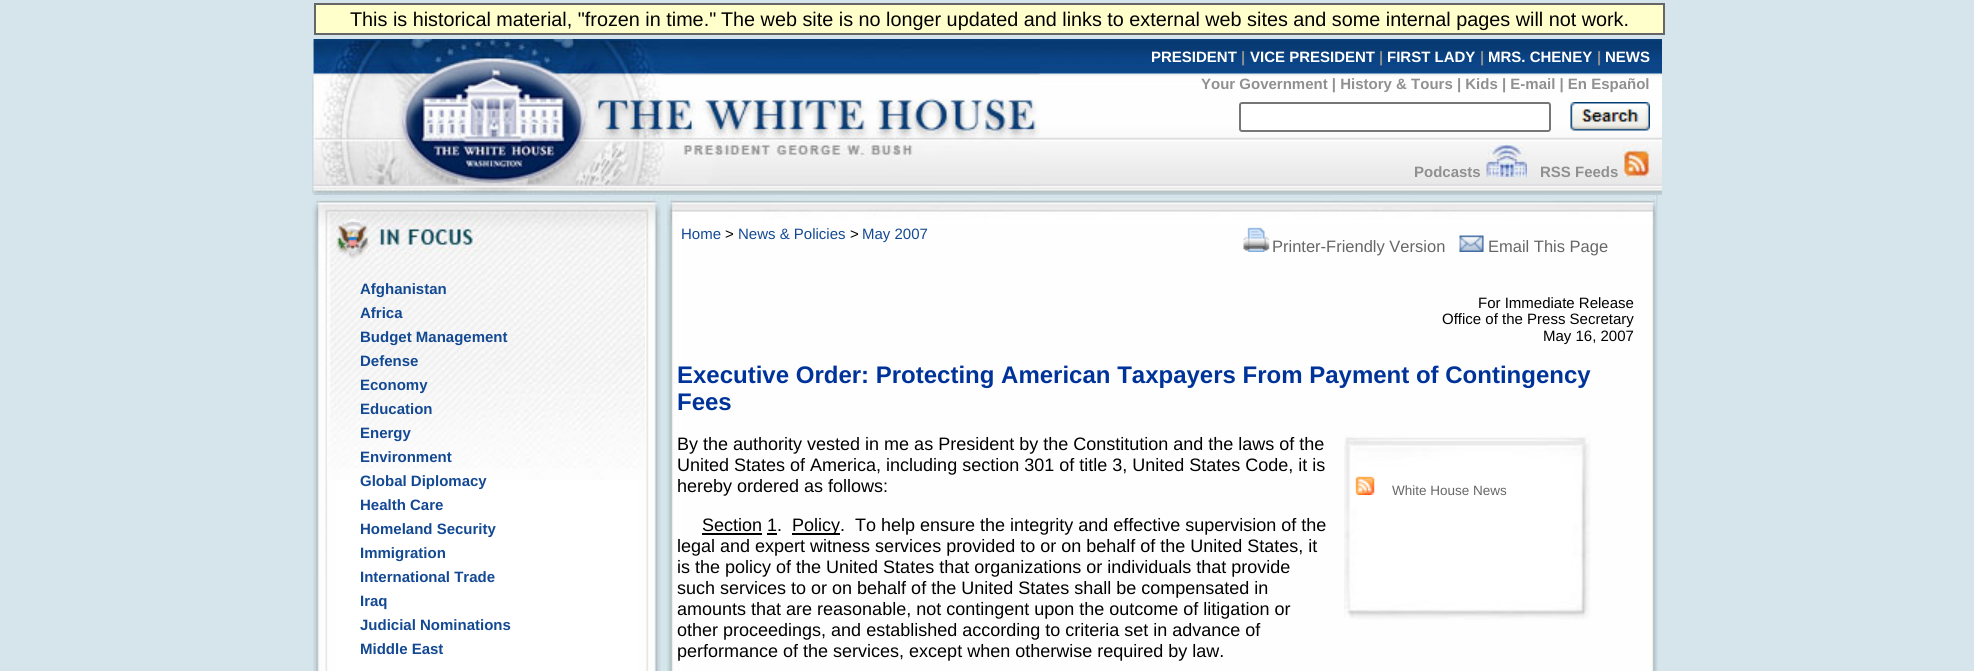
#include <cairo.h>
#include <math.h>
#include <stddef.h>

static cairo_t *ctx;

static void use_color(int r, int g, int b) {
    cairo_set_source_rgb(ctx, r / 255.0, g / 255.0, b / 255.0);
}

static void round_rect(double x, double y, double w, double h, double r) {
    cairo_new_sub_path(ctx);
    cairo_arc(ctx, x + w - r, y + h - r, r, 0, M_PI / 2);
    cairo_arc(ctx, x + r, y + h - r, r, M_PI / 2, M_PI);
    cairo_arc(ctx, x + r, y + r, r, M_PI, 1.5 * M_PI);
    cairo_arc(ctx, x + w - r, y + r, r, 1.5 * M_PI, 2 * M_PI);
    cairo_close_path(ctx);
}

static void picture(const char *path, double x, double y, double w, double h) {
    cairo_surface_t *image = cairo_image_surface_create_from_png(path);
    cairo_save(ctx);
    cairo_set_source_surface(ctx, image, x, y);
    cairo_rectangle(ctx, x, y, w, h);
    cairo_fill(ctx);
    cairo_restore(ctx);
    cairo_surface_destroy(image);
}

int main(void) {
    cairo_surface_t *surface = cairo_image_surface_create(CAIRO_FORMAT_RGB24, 1974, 671);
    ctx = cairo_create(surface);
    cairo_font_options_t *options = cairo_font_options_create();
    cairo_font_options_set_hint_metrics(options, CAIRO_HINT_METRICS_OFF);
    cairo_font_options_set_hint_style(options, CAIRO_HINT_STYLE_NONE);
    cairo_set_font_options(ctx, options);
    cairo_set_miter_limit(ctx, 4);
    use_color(213, 229, 235);
    cairo_paint(ctx);
    use_color(255, 255, 204);
    cairo_rectangle(ctx, 315, 4, 1349, 30);
    cairo_fill_preserve(ctx);
    use_color(102, 102, 102);
    cairo_stroke(ctx);
    cairo_select_font_face(ctx, "Liberation Sans", CAIRO_FONT_SLANT_NORMAL, CAIRO_FONT_WEIGHT_NORMAL);
    cairo_set_font_size(ctx, 19.8);
    use_color(0, 0, 0);
    cairo_move_to(ctx, 350, 26);
    cairo_show_text(ctx, "This is historical material, \"frozen in time.\"");
    cairo_move_to(ctx, 721, 26);
    cairo_show_text(ctx, "The web site is no longer updated and links to external web sites and some internal pages will not work.");
    picture("img1.png", 1039, 39, 623, 156);
    picture("img2.png", 312, 39, 728, 156);
    cairo_select_font_face(ctx, "Liberation Sans", CAIRO_FONT_SLANT_NORMAL, CAIRO_FONT_WEIGHT_BOLD);
    cairo_set_font_size(ctx, 15);
    use_color(255, 255, 255);
    cairo_move_to(ctx, 1151, 62);
    cairo_show_text(ctx, "PRESIDENT");
    use_color(145, 144, 144);
    cairo_move_to(ctx, 1241, 62);
    cairo_show_text(ctx, "|");
    use_color(255, 255, 255);
    cairo_move_to(ctx, 1250, 62);
    cairo_show_text(ctx, "VICE PRESIDENT");
    use_color(145, 144, 144);
    cairo_move_to(ctx, 1379, 62);
    cairo_show_text(ctx, "|");
    use_color(255, 255, 255);
    cairo_move_to(ctx, 1387, 62);
    cairo_show_text(ctx, "FIRST LADY");
    use_color(145, 144, 144);
    cairo_move_to(ctx, 1480, 62);
    cairo_show_text(ctx, "|");
    use_color(255, 255, 255);
    cairo_move_to(ctx, 1488, 62);
    cairo_show_text(ctx, "MRS. CHENEY");
    use_color(145, 144, 144);
    cairo_move_to(ctx, 1597, 62);
    cairo_show_text(ctx, "|");
    use_color(255, 255, 255);
    cairo_move_to(ctx, 1605, 62);
    cairo_show_text(ctx, "NEWS");
    use_color(145, 144, 144);
    cairo_move_to(ctx, 1201, 89);
    cairo_show_text(ctx, "Your Government | History & Tours | Kids | E-mail | En Español");
    use_color(255, 255, 255);
    round_rect(1240, 103, 310, 28, 2);
    cairo_fill_preserve(ctx);
    use_color(118, 118, 118);
    cairo_stroke(ctx);
    picture("img3.png", 1570, 102, 80, 29);
    use_color(145, 144, 144);
    cairo_move_to(ctx, 1414, 177);
    cairo_show_text(ctx, "Podcasts");
    picture("img4.png", 1486, 144, 41, 33);
    cairo_move_to(ctx, 1540, 177);
    cairo_show_text(ctx, "RSS Feeds");
    picture("img5.png", 1623, 144, 27, 33);
    picture("img6.png", 313, 195, 1345, 476);
    picture("img7.png", 667, 195, 989, 30);
    picture("img8.png", 315, 270, 344, 401);
    picture("img9.png", 312, 195, 349, 75);
    picture("img10.png", 327, 264, 318, 216);
    use_color(19, 73, 146);
    cairo_move_to(ctx, 360, 294);
    cairo_show_text(ctx, "Afghanistan");
    cairo_move_to(ctx, 360, 318);
    cairo_show_text(ctx, "Africa");
    cairo_move_to(ctx, 360, 342);
    cairo_show_text(ctx, "Budget Management");
    cairo_move_to(ctx, 360, 366);
    cairo_show_text(ctx, "Defense");
    cairo_move_to(ctx, 360, 390);
    cairo_show_text(ctx, "Economy");
    cairo_move_to(ctx, 360, 414);
    cairo_show_text(ctx, "Education");
    cairo_move_to(ctx, 360, 438);
    cairo_show_text(ctx, "Energy");
    cairo_move_to(ctx, 360, 462);
    cairo_show_text(ctx, "Environment");
    cairo_move_to(ctx, 360, 486);
    cairo_show_text(ctx, "Global Diplomacy");
    cairo_move_to(ctx, 360, 510);
    cairo_show_text(ctx, "Health Care");
    cairo_move_to(ctx, 360, 534);
    cairo_show_text(ctx, "Homeland Security");
    cairo_move_to(ctx, 360, 558);
    cairo_show_text(ctx, "Immigration");
    cairo_move_to(ctx, 360, 582);
    cairo_show_text(ctx, "International Trade");
    cairo_move_to(ctx, 360, 606);
    cairo_show_text(ctx, "Iraq");
    cairo_move_to(ctx, 360, 630);
    cairo_show_text(ctx, "Judicial Nominations");
    cairo_move_to(ctx, 360, 654);
    cairo_show_text(ctx, "Middle East");
    cairo_select_font_face(ctx, "Liberation Sans", CAIRO_FONT_SLANT_NORMAL, CAIRO_FONT_WEIGHT_NORMAL);
    cairo_move_to(ctx, 681, 239);
    cairo_show_text(ctx, "Home");
    use_color(0, 0, 0);
    cairo_move_to(ctx, 725, 239);
    cairo_show_text(ctx, ">");
    use_color(19, 73, 146);
    cairo_move_to(ctx, 738, 239);
    cairo_show_text(ctx, "News & Policies");
    use_color(0, 0, 0);
    cairo_move_to(ctx, 850, 239);
    cairo_show_text(ctx, ">");
    use_color(19, 73, 146);
    cairo_move_to(ctx, 862, 239);
    cairo_show_text(ctx, "May 2007");
    picture("img11.png", 1243, 227, 27, 25);
    cairo_set_font_size(ctx, 16.5);
    use_color(102, 102, 102);
    cairo_move_to(ctx, 1272, 252);
    cairo_show_text(ctx, "Printer-Friendly Version");
    picture("img12.png", 1459, 235, 25, 17);
    cairo_move_to(ctx, 1488, 252);
    cairo_show_text(ctx, "Email This Page");
    cairo_set_font_size(ctx, 15);
    use_color(0, 0, 0);
    cairo_move_to(ctx, 1478, 308);
    cairo_show_text(ctx, "For Immediate Release");
    cairo_move_to(ctx, 1442, 324);
    cairo_show_text(ctx, "Office of the Press Secretary");
    cairo_move_to(ctx, 1543, 341);
    cairo_show_text(ctx, "May 16, 2007");
    cairo_select_font_face(ctx, "Liberation Sans", CAIRO_FONT_SLANT_NORMAL, CAIRO_FONT_WEIGHT_BOLD);
    cairo_set_font_size(ctx, 24);
    use_color(0, 51, 153);
    cairo_move_to(ctx, 677, 383);
    cairo_show_text(ctx, "Executive Order: Protecting American Taxpayers From Payment of Contingency");
    cairo_move_to(ctx, 677, 410);
    cairo_show_text(ctx, "Fees");
    cairo_select_font_face(ctx, "Liberation Sans", CAIRO_FONT_SLANT_NORMAL, CAIRO_FONT_WEIGHT_NORMAL);
    cairo_set_font_size(ctx, 18);
    use_color(0, 0, 0);
    cairo_move_to(ctx, 677, 450);
    cairo_show_text(ctx, "By the authority vested in me as President by the Constitution and the laws of the");
    cairo_move_to(ctx, 677, 471);
    cairo_show_text(ctx, "United States of America, including section 301 of title 3, United States Code, it is");
    cairo_move_to(ctx, 677, 492);
    cairo_show_text(ctx, "hereby ordered as follows:");
    picture("img13.png", 1344, 434, 247, 186);
    picture("img14.png", 1355, 476, 20, 19);
    cairo_set_font_size(ctx, 13.5);
    use_color(102, 102, 102);
    cairo_move_to(ctx, 1392, 495);
    cairo_show_text(ctx, "White House News");
    cairo_set_font_size(ctx, 18);
    use_color(0, 0, 0);
    cairo_move_to(ctx, 702, 531);
    cairo_show_text(ctx, "Section 1.");
    cairo_rectangle(ctx, 702, 533, 60, 2);
    cairo_fill(ctx);
    cairo_rectangle(ctx, 792, 533, 48, 2);
    cairo_fill(ctx);
    cairo_move_to(ctx, 792, 531);
    cairo_show_text(ctx, "Policy.  To help ensure the integrity and effective supervision of the");
    cairo_rectangle(ctx, 767, 533, 10, 2);
    cairo_fill(ctx);
    cairo_move_to(ctx, 677, 552);
    cairo_show_text(ctx, "legal and expert witness services provided to or on behalf of the United States, it");
    cairo_move_to(ctx, 677, 573);
    cairo_show_text(ctx, "is the policy of the United States that organizations or individuals that provide");
    cairo_move_to(ctx, 677, 594);
    cairo_show_text(ctx, "such services to or on behalf of the United States shall be compensated in");
    cairo_move_to(ctx, 677, 615);
    cairo_show_text(ctx, "amounts that are reasonable, not contingent upon the outcome of litigation or");
    cairo_move_to(ctx, 677, 636);
    cairo_show_text(ctx, "other proceedings, and established according to criteria set in advance of");
    cairo_move_to(ctx, 677, 657);
    cairo_show_text(ctx, "performance of the services, except when otherwise required by law.");
    cairo_surface_write_to_png(surface, "result.png");
    cairo_font_options_destroy(options);
    cairo_destroy(ctx);
    cairo_surface_destroy(surface);
    return 0;
}
